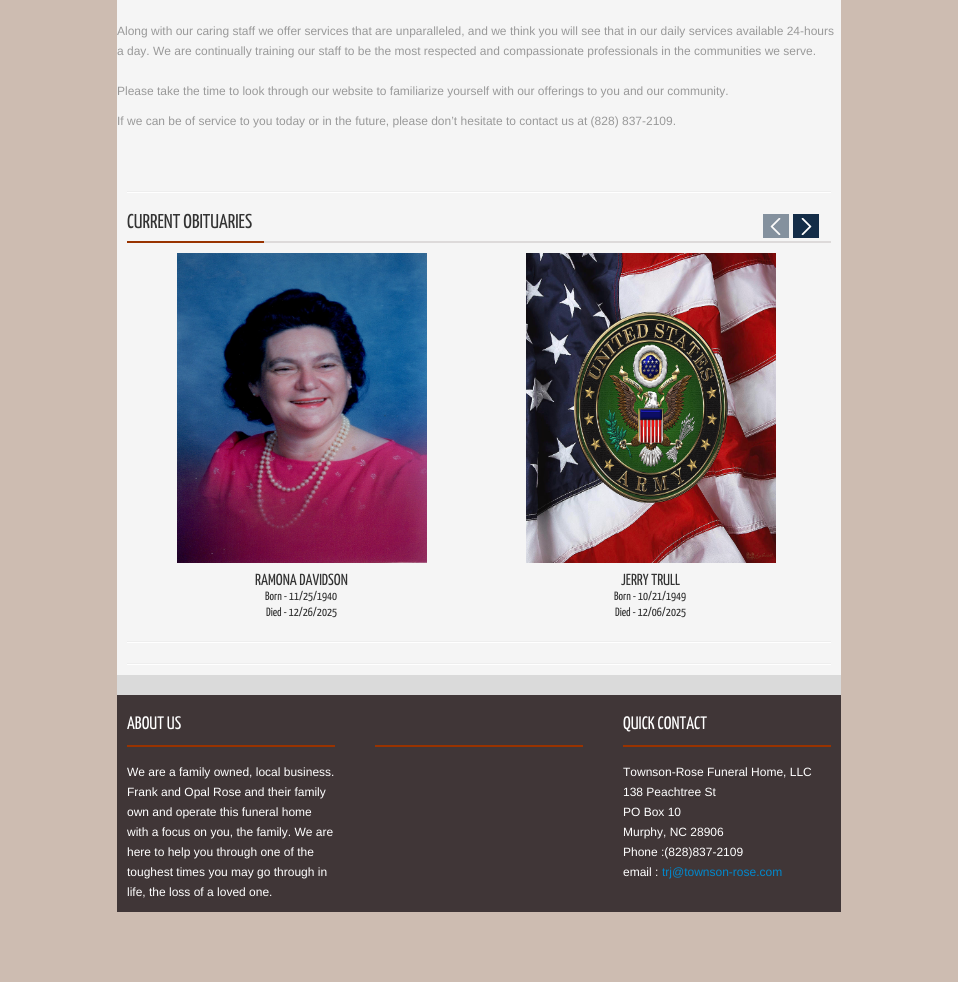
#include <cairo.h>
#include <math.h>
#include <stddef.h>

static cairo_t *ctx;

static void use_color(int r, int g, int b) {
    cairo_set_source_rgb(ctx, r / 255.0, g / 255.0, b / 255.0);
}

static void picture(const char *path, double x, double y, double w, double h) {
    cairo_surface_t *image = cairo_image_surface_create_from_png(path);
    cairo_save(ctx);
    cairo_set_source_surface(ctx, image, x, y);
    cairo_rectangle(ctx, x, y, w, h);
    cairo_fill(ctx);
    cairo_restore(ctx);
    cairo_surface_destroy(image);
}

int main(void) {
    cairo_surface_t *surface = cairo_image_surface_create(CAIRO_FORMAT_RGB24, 958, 982);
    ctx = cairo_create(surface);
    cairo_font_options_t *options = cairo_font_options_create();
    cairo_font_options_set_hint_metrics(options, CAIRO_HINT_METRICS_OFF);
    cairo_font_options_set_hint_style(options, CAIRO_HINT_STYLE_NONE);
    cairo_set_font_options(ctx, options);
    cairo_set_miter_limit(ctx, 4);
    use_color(205, 188, 177);
    cairo_paint(ctx);
    use_color(245, 245, 245);
    cairo_rectangle(ctx, 117, 0, 724, 675);
    cairo_fill(ctx);
    cairo_select_font_face(ctx, "Liberation Sans", CAIRO_FONT_SLANT_NORMAL, CAIRO_FONT_WEIGHT_NORMAL);
    cairo_set_font_size(ctx, 12);
    use_color(153, 153, 153);
    cairo_move_to(ctx, 117, 35);
    cairo_show_text(ctx, "Along with our caring staff we offer services that are unparalleled, and we think you will see that in our daily services available 24-hours");
    cairo_move_to(ctx, 117, 55);
    cairo_show_text(ctx, "a day. We are continually training our staff to be the most respected and compassionate professionals in the communities we serve.");
    cairo_move_to(ctx, 117, 95);
    cairo_show_text(ctx, "Please take the time to look through our website to familiarize yourself with our offerings to you and our community.");
    cairo_move_to(ctx, 117, 125);
    cairo_show_text(ctx, "If we can be of service to you today or in the future, please don’t hesitate to contact us at (828) 837-2109.");
    use_color(238, 238, 238);
    cairo_rectangle(ctx, 127, 191, 704, 1);
    cairo_fill(ctx);
    use_color(255, 255, 255);
    cairo_rectangle(ctx, 127, 192, 704, 1);
    cairo_fill(ctx);
    picture("img1.png", 127, 241, 704, 2);
    cairo_select_font_face(ctx, "Yanone Kaffeesatz", CAIRO_FONT_SLANT_NORMAL, CAIRO_FONT_WEIGHT_NORMAL);
    cairo_set_font_size(ctx, 20);
    use_color(51, 51, 51);
    cairo_move_to(ctx, 127, 228);
    cairo_show_text(ctx, "CURRENT OBITUARIES");
    picture("img2.png", 763, 214, 26, 24);
    picture("img3.png", 793, 214, 26, 24);
    picture("img4.png", 177, 253, 250, 310);
    cairo_set_font_size(ctx, 16);
    cairo_move_to(ctx, 255, 585);
    cairo_show_text(ctx, "RAMONA DAVIDSON");
    cairo_set_font_size(ctx, 12);
    cairo_move_to(ctx, 265, 600);
    cairo_show_text(ctx, "Born - 11/25/1940");
    cairo_move_to(ctx, 266, 616);
    cairo_show_text(ctx, "Died - 12/26/2025");
    picture("img5.png", 526, 253, 250, 310);
    cairo_set_font_size(ctx, 16);
    cairo_move_to(ctx, 621, 585);
    cairo_show_text(ctx, "JERRY TRULL");
    cairo_set_font_size(ctx, 12);
    cairo_move_to(ctx, 614, 600);
    cairo_show_text(ctx, "Born - 10/21/1949");
    cairo_move_to(ctx, 615, 616);
    cairo_show_text(ctx, "Died - 12/06/2025");
    use_color(238, 238, 238);
    cairo_rectangle(ctx, 127, 641, 704, 1);
    cairo_fill(ctx);
    use_color(255, 255, 255);
    cairo_rectangle(ctx, 127, 642, 704, 1);
    cairo_fill(ctx);
    use_color(238, 238, 238);
    cairo_rectangle(ctx, 127, 663, 704, 1);
    cairo_fill(ctx);
    use_color(255, 255, 255);
    cairo_rectangle(ctx, 127, 664, 704, 1);
    cairo_fill(ctx);
    use_color(64, 54, 55);
    cairo_rectangle(ctx, 117, 695, 724, 217);
    cairo_fill(ctx);
    use_color(218, 218, 218);
    cairo_rectangle(ctx, 117, 675, 724, 20);
    cairo_fill(ctx);
    use_color(153, 51, 0);
    cairo_rectangle(ctx, 127, 745, 208, 2);
    cairo_fill(ctx);
    cairo_set_font_size(ctx, 18);
    use_color(255, 255, 255);
    cairo_move_to(ctx, 127, 729);
    cairo_show_text(ctx, "ABOUT US");
    cairo_select_font_face(ctx, "Liberation Sans", CAIRO_FONT_SLANT_NORMAL, CAIRO_FONT_WEIGHT_NORMAL);
    cairo_set_font_size(ctx, 12);
    cairo_move_to(ctx, 127, 776);
    cairo_show_text(ctx, "We are a family owned, local business.");
    cairo_move_to(ctx, 127, 796);
    cairo_show_text(ctx, "Frank and Opal Rose and their family");
    cairo_move_to(ctx, 127, 816);
    cairo_show_text(ctx, "own and operate this funeral home");
    cairo_move_to(ctx, 127, 836);
    cairo_show_text(ctx, "with a focus on you, the family. We are");
    cairo_move_to(ctx, 127, 856);
    cairo_show_text(ctx, "here to help you through one of the");
    cairo_move_to(ctx, 127, 876);
    cairo_show_text(ctx, "toughest times you may go through in");
    cairo_move_to(ctx, 127, 896);
    cairo_show_text(ctx, "life, the loss of a loved one.");
    use_color(153, 51, 0);
    cairo_rectangle(ctx, 375, 745, 208, 2);
    cairo_fill(ctx);
    cairo_rectangle(ctx, 623, 745, 208, 2);
    cairo_fill(ctx);
    cairo_select_font_face(ctx, "Yanone Kaffeesatz", CAIRO_FONT_SLANT_NORMAL, CAIRO_FONT_WEIGHT_NORMAL);
    cairo_set_font_size(ctx, 18);
    use_color(255, 255, 255);
    cairo_move_to(ctx, 623, 729);
    cairo_show_text(ctx, "QUICK CONTACT");
    cairo_select_font_face(ctx, "Liberation Sans", CAIRO_FONT_SLANT_NORMAL, CAIRO_FONT_WEIGHT_NORMAL);
    cairo_set_font_size(ctx, 12);
    cairo_move_to(ctx, 623, 776);
    cairo_show_text(ctx, "Townson-Rose Funeral Home, LLC");
    cairo_move_to(ctx, 623, 796);
    cairo_show_text(ctx, "138 Peachtree St");
    cairo_move_to(ctx, 623, 816);
    cairo_show_text(ctx, "PO Box 10");
    cairo_move_to(ctx, 623, 836);
    cairo_show_text(ctx, "Murphy, NC 28906");
    cairo_move_to(ctx, 623, 856);
    cairo_show_text(ctx, "Phone :(828)837-2109");
    cairo_move_to(ctx, 623, 876);
    cairo_show_text(ctx, "email :");
    use_color(0, 136, 204);
    cairo_move_to(ctx, 662, 876);
    cairo_show_text(ctx, "trj@townson-rose.com");
    cairo_surface_write_to_png(surface, "result.png");
    cairo_font_options_destroy(options);
    cairo_destroy(ctx);
    cairo_surface_destroy(surface);
    return 0;
}
